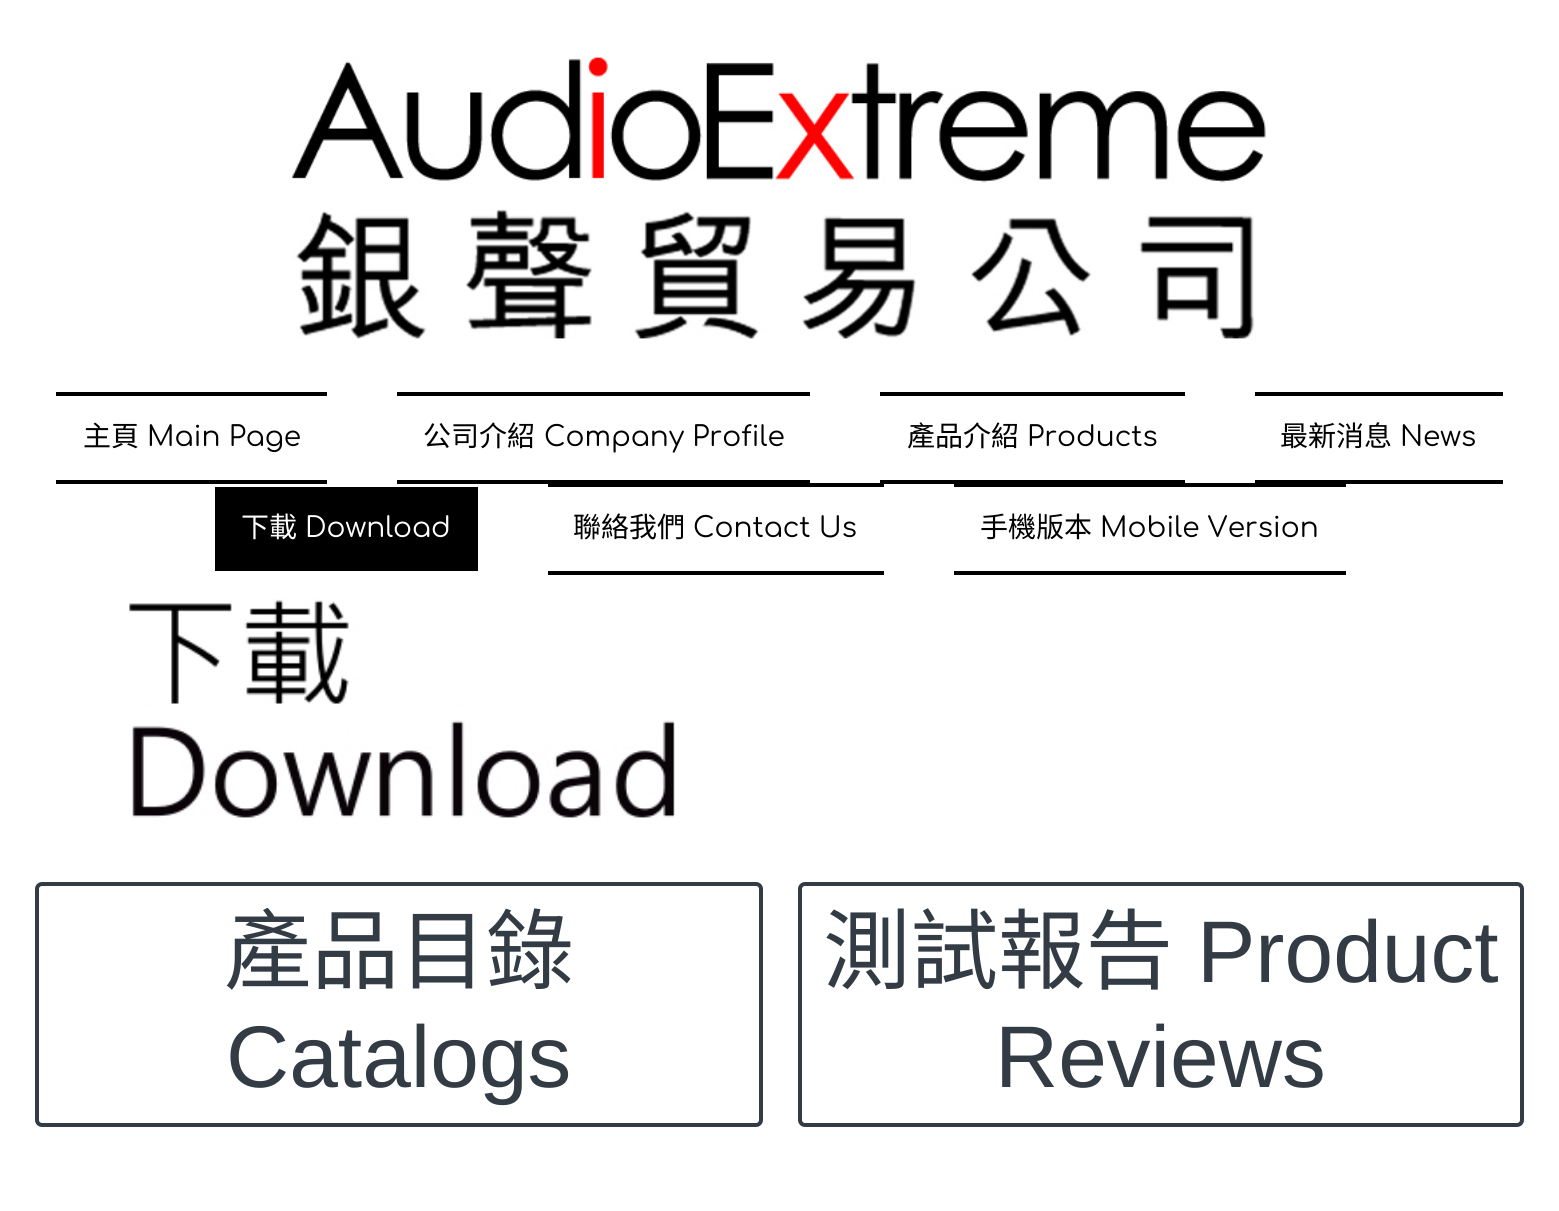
#include <cairo.h>
#include <math.h>
#include <stddef.h>

static cairo_t *ctx;

static void use_color(int r, int g, int b) {
    cairo_set_source_rgb(ctx, r / 255.0, g / 255.0, b / 255.0);
}

static void round_rect(double x, double y, double w, double h, double r) {
    cairo_new_sub_path(ctx);
    cairo_arc(ctx, x + w - r, y + h - r, r, 0, M_PI / 2);
    cairo_arc(ctx, x + r, y + h - r, r, M_PI / 2, M_PI);
    cairo_arc(ctx, x + r, y + r, r, M_PI, 1.5 * M_PI);
    cairo_arc(ctx, x + w - r, y + r, r, 1.5 * M_PI, 2 * M_PI);
    cairo_close_path(ctx);
}

static void picture(const char *path, double x, double y, double w, double h) {
    cairo_surface_t *image = cairo_image_surface_create_from_png(path);
    cairo_save(ctx);
    cairo_set_source_surface(ctx, image, x, y);
    cairo_rectangle(ctx, x, y, w, h);
    cairo_fill(ctx);
    cairo_restore(ctx);
    cairo_surface_destroy(image);
}

int main(void) {
    cairo_surface_t *surface = cairo_image_surface_create(CAIRO_FORMAT_RGB24, 1559, 1211);
    ctx = cairo_create(surface);
    cairo_font_options_t *options = cairo_font_options_create();
    cairo_font_options_set_hint_metrics(options, CAIRO_HINT_METRICS_OFF);
    cairo_font_options_set_hint_style(options, CAIRO_HINT_STYLE_NONE);
    cairo_set_font_options(ctx, options);
    cairo_set_miter_limit(ctx, 4);
    use_color(255, 255, 255);
    cairo_paint(ctx);
    picture("img1.png", 292, 57, 974, 282);
    use_color(0, 0, 0);
    cairo_rectangle(ctx, 56, 392, 271, 4);
    cairo_fill(ctx);
    cairo_rectangle(ctx, 56, 480, 271, 4);
    cairo_fill(ctx);
    cairo_select_font_face(ctx, "Noto Sans CJK HK", CAIRO_FONT_SLANT_NORMAL, CAIRO_FONT_WEIGHT_NORMAL);
    cairo_set_font_size(ctx, 28);
    cairo_move_to(ctx, 83, 446);
    cairo_show_text(ctx, "主頁");
    cairo_select_font_face(ctx, "Comfortaa", CAIRO_FONT_SLANT_NORMAL, CAIRO_FONT_WEIGHT_NORMAL);
    cairo_move_to(ctx, 147, 446);
    cairo_show_text(ctx, "Main Page");
    cairo_rectangle(ctx, 397, 392, 413, 4);
    cairo_fill(ctx);
    cairo_rectangle(ctx, 397, 480, 413, 4);
    cairo_fill(ctx);
    cairo_select_font_face(ctx, "Noto Sans CJK HK", CAIRO_FONT_SLANT_NORMAL, CAIRO_FONT_WEIGHT_NORMAL);
    cairo_move_to(ctx, 423, 446);
    cairo_show_text(ctx, "公司介紹");
    cairo_select_font_face(ctx, "Comfortaa", CAIRO_FONT_SLANT_NORMAL, CAIRO_FONT_WEIGHT_NORMAL);
    cairo_move_to(ctx, 544, 446);
    cairo_show_text(ctx, "Company Profile");
    cairo_rectangle(ctx, 880, 392, 305, 4);
    cairo_fill(ctx);
    cairo_rectangle(ctx, 880, 480, 305, 4);
    cairo_fill(ctx);
    cairo_select_font_face(ctx, "Noto Sans CJK HK", CAIRO_FONT_SLANT_NORMAL, CAIRO_FONT_WEIGHT_NORMAL);
    cairo_move_to(ctx, 907, 446);
    cairo_show_text(ctx, "產品介紹");
    cairo_select_font_face(ctx, "Comfortaa", CAIRO_FONT_SLANT_NORMAL, CAIRO_FONT_WEIGHT_NORMAL);
    cairo_move_to(ctx, 1027, 446);
    cairo_show_text(ctx, "Products");
    cairo_rectangle(ctx, 1255, 392, 248, 4);
    cairo_fill(ctx);
    cairo_rectangle(ctx, 1255, 480, 248, 4);
    cairo_fill(ctx);
    cairo_select_font_face(ctx, "Noto Sans CJK HK", CAIRO_FONT_SLANT_NORMAL, CAIRO_FONT_WEIGHT_NORMAL);
    cairo_move_to(ctx, 1280, 446);
    cairo_show_text(ctx, "最新消息");
    cairo_select_font_face(ctx, "Comfortaa", CAIRO_FONT_SLANT_NORMAL, CAIRO_FONT_WEIGHT_NORMAL);
    cairo_move_to(ctx, 1400, 446);
    cairo_show_text(ctx, "News");
    cairo_rectangle(ctx, 215, 487, 263, 84);
    cairo_fill(ctx);
    cairo_select_font_face(ctx, "Noto Sans CJK HK", CAIRO_FONT_SLANT_NORMAL, CAIRO_FONT_WEIGHT_NORMAL);
    use_color(255, 255, 255);
    cairo_move_to(ctx, 241, 537);
    cairo_show_text(ctx, "下載");
    cairo_select_font_face(ctx, "Comfortaa", CAIRO_FONT_SLANT_NORMAL, CAIRO_FONT_WEIGHT_NORMAL);
    cairo_move_to(ctx, 305, 537);
    cairo_show_text(ctx, "Download");
    use_color(0, 0, 0);
    cairo_rectangle(ctx, 548, 483, 336, 4);
    cairo_fill(ctx);
    cairo_rectangle(ctx, 548, 571, 336, 4);
    cairo_fill(ctx);
    cairo_select_font_face(ctx, "Noto Sans CJK HK", CAIRO_FONT_SLANT_NORMAL, CAIRO_FONT_WEIGHT_NORMAL);
    cairo_move_to(ctx, 573, 537);
    cairo_show_text(ctx, "聯絡我們");
    cairo_select_font_face(ctx, "Comfortaa", CAIRO_FONT_SLANT_NORMAL, CAIRO_FONT_WEIGHT_NORMAL);
    cairo_move_to(ctx, 693, 537);
    cairo_show_text(ctx, "Contact Us");
    cairo_rectangle(ctx, 954, 483, 392, 4);
    cairo_fill(ctx);
    cairo_rectangle(ctx, 954, 571, 392, 4);
    cairo_fill(ctx);
    cairo_select_font_face(ctx, "Noto Sans CJK HK", CAIRO_FONT_SLANT_NORMAL, CAIRO_FONT_WEIGHT_NORMAL);
    cairo_move_to(ctx, 980, 537);
    cairo_show_text(ctx, "手機版本");
    cairo_select_font_face(ctx, "Comfortaa", CAIRO_FONT_SLANT_NORMAL, CAIRO_FONT_WEIGHT_NORMAL);
    cairo_move_to(ctx, 1100, 537);
    cairo_show_text(ctx, "Mobile Version");
    picture("img2.png", 129, 599, 546, 219);
    round_rect(37, 884, 724, 241, 5);
    use_color(51, 60, 68);
    cairo_set_line_width(ctx, 4);
    cairo_stroke(ctx);
    cairo_select_font_face(ctx, "Noto Sans CJK HK", CAIRO_FONT_SLANT_NORMAL, CAIRO_FONT_WEIGHT_NORMAL);
    cairo_set_font_size(ctx, 87.5);
    cairo_move_to(ctx, 224, 982);
    cairo_show_text(ctx, "產品目錄");
    cairo_select_font_face(ctx, "Liberation Sans", CAIRO_FONT_SLANT_NORMAL, CAIRO_FONT_WEIGHT_NORMAL);
    cairo_move_to(ctx, 226, 1087);
    cairo_show_text(ctx, "Catalogs");
    round_rect(800, 884, 722, 241, 5);
    cairo_stroke(ctx);
    cairo_select_font_face(ctx, "Noto Sans CJK HK", CAIRO_FONT_SLANT_NORMAL, CAIRO_FONT_WEIGHT_NORMAL);
    cairo_move_to(ctx, 823, 982);
    cairo_show_text(ctx, "測試報告");
    cairo_select_font_face(ctx, "Liberation Sans", CAIRO_FONT_SLANT_NORMAL, CAIRO_FONT_WEIGHT_NORMAL);
    cairo_move_to(ctx, 1197, 982);
    cairo_show_text(ctx, "Product");
    cairo_move_to(ctx, 995, 1087);
    cairo_show_text(ctx, "Reviews");
    cairo_surface_write_to_png(surface, "result.png");
    cairo_font_options_destroy(options);
    cairo_destroy(ctx);
    cairo_surface_destroy(surface);
    return 0;
}
